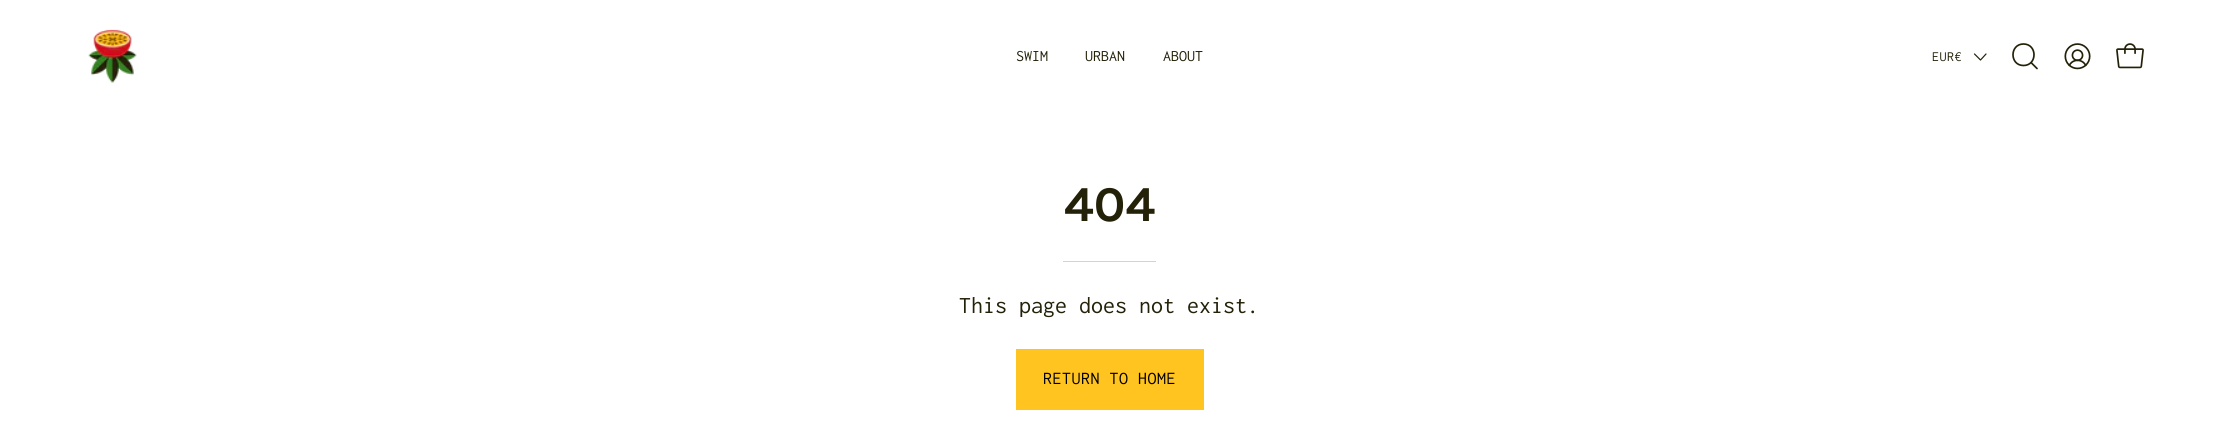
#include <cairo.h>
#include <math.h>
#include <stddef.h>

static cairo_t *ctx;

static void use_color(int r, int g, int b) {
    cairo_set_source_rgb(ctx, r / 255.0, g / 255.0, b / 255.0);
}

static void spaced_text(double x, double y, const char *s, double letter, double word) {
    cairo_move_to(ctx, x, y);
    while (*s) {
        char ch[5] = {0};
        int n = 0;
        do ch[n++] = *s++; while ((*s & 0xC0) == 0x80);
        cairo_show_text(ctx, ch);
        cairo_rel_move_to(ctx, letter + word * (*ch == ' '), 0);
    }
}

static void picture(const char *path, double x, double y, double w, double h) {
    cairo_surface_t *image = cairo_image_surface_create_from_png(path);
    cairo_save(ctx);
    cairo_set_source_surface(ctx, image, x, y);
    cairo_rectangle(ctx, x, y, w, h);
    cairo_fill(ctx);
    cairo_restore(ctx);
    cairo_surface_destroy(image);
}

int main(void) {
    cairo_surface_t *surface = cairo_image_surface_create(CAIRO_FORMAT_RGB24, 2218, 434);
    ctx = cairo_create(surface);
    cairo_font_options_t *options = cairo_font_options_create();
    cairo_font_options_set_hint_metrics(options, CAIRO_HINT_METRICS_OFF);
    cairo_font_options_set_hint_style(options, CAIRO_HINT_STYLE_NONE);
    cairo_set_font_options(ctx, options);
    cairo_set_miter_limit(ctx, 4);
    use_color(255, 255, 255);
    cairo_paint(ctx);
    picture("img1.png", 88, 29, 49, 54);
    cairo_select_font_face(ctx, "Inconsolata", CAIRO_FONT_SLANT_NORMAL, CAIRO_FONT_WEIGHT_NORMAL);
    cairo_set_font_size(ctx, 16);
    use_color(36, 33, 9);
    cairo_move_to(ctx, 1016, 61);
    cairo_show_text(ctx, "SWIM");
    cairo_move_to(ctx, 1085, 61);
    cairo_show_text(ctx, "URBAN");
    cairo_move_to(ctx, 1163, 61);
    cairo_show_text(ctx, "ABOUT");
    cairo_set_font_size(ctx, 14);
    spaced_text(1932, 61, "EUR€", 0.5, 0);
    cairo_new_path(ctx);
    cairo_move_to(ctx, 1986, 54);
    cairo_line_to(ctx, 1980.5, 60);
    cairo_line_to(ctx, 1974.5, 54);
    cairo_set_line_width(ctx, 1.2);
    cairo_set_line_cap(ctx, CAIRO_LINE_CAP_ROUND);
    cairo_set_line_join(ctx, CAIRO_LINE_JOIN_ROUND);
    cairo_stroke(ctx);
    cairo_new_path(ctx);
    cairo_move_to(ctx, 2023.5, 65.5);
    cairo_curve_to(ctx, 2037.5, 65.5, 2037.5, 44, 2023.5, 44);
    cairo_curve_to(ctx, 2009.5, 44, 2009.5, 65.5, 2023.5, 65.5);
    cairo_close_path(ctx);
    cairo_move_to(ctx, 2031, 62.5);
    cairo_line_to(ctx, 2037, 68.5);
    cairo_set_line_width(ctx, 1.7);
    cairo_stroke(ctx);
    picture("img2.png", 2064, 43, 27, 27);
    picture("img3.png", 2116, 43, 28, 26);
    cairo_select_font_face(ctx, "Karla", CAIRO_FONT_SLANT_NORMAL, CAIRO_FONT_WEIGHT_BOLD);
    cairo_set_font_size(ctx, 50);
    cairo_move_to(ctx, 1064, 221);
    cairo_show_text(ctx, "404");
    use_color(211, 211, 211);
    cairo_rectangle(ctx, 1063, 261, 93, 1);
    cairo_fill(ctx);
    cairo_select_font_face(ctx, "Inconsolata", CAIRO_FONT_SLANT_NORMAL, CAIRO_FONT_WEIGHT_NORMAL);
    cairo_set_font_size(ctx, 24);
    use_color(36, 33, 9);
    cairo_move_to(ctx, 959, 313);
    cairo_show_text(ctx, "This page does not exist.");
    use_color(255, 196, 31);
    cairo_rectangle(ctx, 1016, 349, 188, 61);
    cairo_fill(ctx);
    cairo_set_font_size(ctx, 18);
    use_color(0, 0, 0);
    spaced_text(1043, 384, "RETURN TO HOME", 0.5, 0);
    cairo_surface_write_to_png(surface, "result.png");
    cairo_font_options_destroy(options);
    cairo_destroy(ctx);
    cairo_surface_destroy(surface);
    return 0;
}
